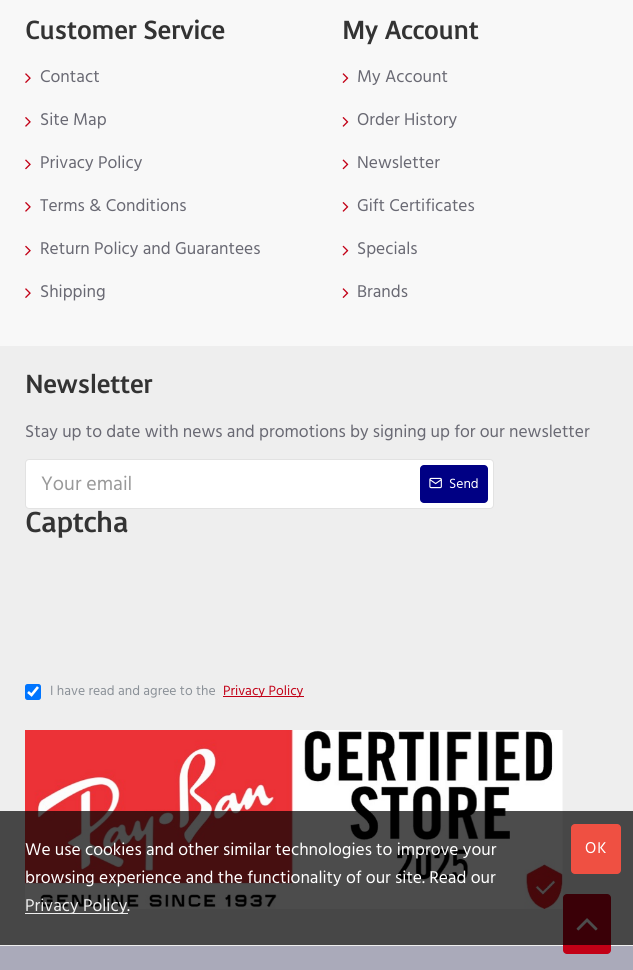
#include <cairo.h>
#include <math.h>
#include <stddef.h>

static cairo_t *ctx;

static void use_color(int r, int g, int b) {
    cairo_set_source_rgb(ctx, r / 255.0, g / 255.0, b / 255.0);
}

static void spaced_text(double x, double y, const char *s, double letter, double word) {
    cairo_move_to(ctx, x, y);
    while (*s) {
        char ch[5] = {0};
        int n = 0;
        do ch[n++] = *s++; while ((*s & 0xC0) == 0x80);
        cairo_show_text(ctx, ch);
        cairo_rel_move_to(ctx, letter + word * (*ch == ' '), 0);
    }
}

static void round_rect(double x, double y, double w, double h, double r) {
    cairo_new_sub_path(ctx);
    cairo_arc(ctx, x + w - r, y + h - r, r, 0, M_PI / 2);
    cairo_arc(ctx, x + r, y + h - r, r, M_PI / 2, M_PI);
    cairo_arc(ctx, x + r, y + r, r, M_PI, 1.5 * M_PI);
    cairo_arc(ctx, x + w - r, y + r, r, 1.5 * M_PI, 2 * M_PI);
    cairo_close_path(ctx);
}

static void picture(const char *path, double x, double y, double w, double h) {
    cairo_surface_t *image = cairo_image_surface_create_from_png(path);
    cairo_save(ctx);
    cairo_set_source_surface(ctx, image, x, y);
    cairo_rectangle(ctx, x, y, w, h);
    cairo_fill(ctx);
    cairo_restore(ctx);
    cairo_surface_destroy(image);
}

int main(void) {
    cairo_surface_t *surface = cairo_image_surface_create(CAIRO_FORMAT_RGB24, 633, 970);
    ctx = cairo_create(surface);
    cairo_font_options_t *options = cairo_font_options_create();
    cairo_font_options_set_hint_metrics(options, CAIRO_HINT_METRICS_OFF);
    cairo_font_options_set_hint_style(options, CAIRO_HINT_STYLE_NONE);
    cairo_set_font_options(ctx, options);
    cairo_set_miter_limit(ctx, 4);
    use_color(248, 248, 248);
    cairo_paint(ctx);
    cairo_select_font_face(ctx, "Voces", CAIRO_FONT_SLANT_NORMAL, CAIRO_FONT_WEIGHT_BOLD);
    cairo_set_font_size(ctx, 25);
    use_color(51, 51, 51);
    cairo_move_to(ctx, 25, 39);
    cairo_show_text(ctx, "Customer Service");
    picture("img1.png", 25, 73, 6, 10);
    cairo_select_font_face(ctx, "Hind Madurai", CAIRO_FONT_SLANT_NORMAL, CAIRO_FONT_WEIGHT_NORMAL);
    cairo_set_font_size(ctx, 17.5);
    use_color(105, 105, 115);
    cairo_move_to(ctx, 40, 82);
    cairo_show_text(ctx, "Contact");
    picture("img2.png", 25, 117, 6, 10);
    cairo_move_to(ctx, 40, 125);
    cairo_show_text(ctx, "Site Map");
    picture("img3.png", 25, 159, 6, 11);
    cairo_move_to(ctx, 40, 168);
    cairo_show_text(ctx, "Privacy Policy");
    picture("img2.png", 25, 202, 6, 10);
    cairo_move_to(ctx, 40, 211);
    cairo_show_text(ctx, "Terms & Conditions");
    picture("img4.png", 25, 245, 6, 11);
    cairo_move_to(ctx, 40, 254);
    cairo_show_text(ctx, "Return Policy and Guarantees");
    picture("img1.png", 25, 288, 6, 10);
    cairo_move_to(ctx, 40, 297);
    cairo_show_text(ctx, "Shipping");
    cairo_select_font_face(ctx, "Voces", CAIRO_FONT_SLANT_NORMAL, CAIRO_FONT_WEIGHT_BOLD);
    cairo_set_font_size(ctx, 25);
    use_color(51, 51, 51);
    cairo_move_to(ctx, 342, 39);
    cairo_show_text(ctx, "My Account");
    picture("img5.png", 342, 73, 7, 10);
    cairo_select_font_face(ctx, "Hind Madurai", CAIRO_FONT_SLANT_NORMAL, CAIRO_FONT_WEIGHT_NORMAL);
    cairo_set_font_size(ctx, 17.5);
    use_color(105, 105, 115);
    cairo_move_to(ctx, 357, 82);
    cairo_show_text(ctx, "My Account");
    picture("img6.png", 342, 117, 7, 10);
    cairo_move_to(ctx, 357, 125);
    cairo_show_text(ctx, "Order History");
    picture("img7.png", 342, 159, 7, 11);
    cairo_move_to(ctx, 357, 168);
    cairo_show_text(ctx, "Newsletter");
    picture("img6.png", 342, 202, 7, 10);
    cairo_move_to(ctx, 357, 211);
    cairo_show_text(ctx, "Gift Certificates");
    picture("img8.png", 342, 245, 7, 11);
    cairo_move_to(ctx, 357, 254);
    cairo_show_text(ctx, "Specials");
    picture("img5.png", 342, 288, 7, 10);
    cairo_move_to(ctx, 357, 297);
    cairo_show_text(ctx, "Brands");
    use_color(238, 238, 238);
    cairo_rectangle(ctx, 0, 346, 633, 600);
    cairo_fill(ctx);
    cairo_select_font_face(ctx, "Voces", CAIRO_FONT_SLANT_NORMAL, CAIRO_FONT_WEIGHT_BOLD);
    cairo_set_font_size(ctx, 25);
    use_color(51, 51, 51);
    cairo_move_to(ctx, 25, 393);
    cairo_show_text(ctx, "Newsletter");
    cairo_select_font_face(ctx, "Hind Madurai", CAIRO_FONT_SLANT_NORMAL, CAIRO_FONT_WEIGHT_NORMAL);
    cairo_set_font_size(ctx, 17.5);
    use_color(105, 105, 115);
    cairo_move_to(ctx, 25, 437);
    cairo_show_text(ctx, "Stay up to date with news and promotions by signing up for our newsletter");
    use_color(255, 255, 255);
    round_rect(25.5, 459.5, 468, 49, 3.5);
    cairo_fill_preserve(ctx);
    use_color(226, 226, 226);
    cairo_set_line_width(ctx, 1);
    cairo_stroke(ctx);
    cairo_set_font_size(ctx, 20);
    use_color(153, 153, 153);
    cairo_move_to(ctx, 41, 490);
    cairo_show_text(ctx, "Your email");
    use_color(0, 0, 132);
    round_rect(420, 465, 68, 38, 4);
    cairo_fill(ctx);
    picture("img9.png", 429, 477, 13, 12);
    cairo_set_font_size(ctx, 13.75);
    use_color(255, 255, 255);
    cairo_move_to(ctx, 449, 488);
    cairo_show_text(ctx, "Send");
    cairo_select_font_face(ctx, "Voces", CAIRO_FONT_SLANT_NORMAL, CAIRO_FONT_WEIGHT_BOLD);
    cairo_set_font_size(ctx, 27.5);
    use_color(51, 51, 51);
    cairo_move_to(ctx, 25, 532);
    cairo_show_text(ctx, "Captcha");
    use_color(0, 117, 255);
    round_rect(25, 684, 16, 16, 2.5);
    cairo_fill(ctx);
    cairo_new_path(ctx);
    cairo_move_to(ctx, 28, 692);
    cairo_line_to(ctx, 31.5, 695);
    cairo_line_to(ctx, 38, 687);
    use_color(255, 255, 255);
    cairo_set_line_width(ctx, 2.6);
    cairo_stroke(ctx);
    cairo_select_font_face(ctx, "Hind Madurai", CAIRO_FONT_SLANT_NORMAL, CAIRO_FONT_WEIGHT_NORMAL);
    cairo_set_font_size(ctx, 13.75);
    use_color(139, 145, 152);
    cairo_move_to(ctx, 50, 695);
    cairo_show_text(ctx, "I have read and agree to the");
    use_color(194, 0, 22);
    cairo_rectangle(ctx, 223, 696, 81, 1);
    cairo_fill(ctx);
    cairo_move_to(ctx, 223, 695);
    cairo_show_text(ctx, "Privacy Policy");
    picture("img10.png", 25, 730, 538, 179);
    use_color(170, 170, 186);
    cairo_rectangle(ctx, 0, 946, 633, 24);
    cairo_fill(ctx);
    use_color(194, 0, 22);
    round_rect(563, 894, 48, 60, 4);
    cairo_fill(ctx);
    picture("img11.png", 576, 918, 22, 13);
    cairo_set_source_rgba(ctx, 0, 0, 0, 0.7);
    cairo_rectangle(ctx, 0, 811, 633, 134);
    cairo_fill(ctx);
    cairo_set_font_size(ctx, 17.5);
    use_color(255, 255, 255);
    cairo_move_to(ctx, 25, 855);
    cairo_show_text(ctx, "We use cookies and other similar technologies to improve your");
    cairo_move_to(ctx, 25, 883);
    cairo_show_text(ctx, "browsing experience and the functionality of our site. Read our");
    use_color(238, 238, 238);
    cairo_rectangle(ctx, 25, 913, 103, 1);
    cairo_fill(ctx);
    cairo_move_to(ctx, 25, 911);
    cairo_show_text(ctx, "Privacy Policy");
    use_color(255, 255, 255);
    cairo_move_to(ctx, 127, 911);
    cairo_show_text(ctx, ".");
    use_color(239, 80, 66);
    round_rect(571, 824, 50, 50, 4);
    cairo_fill(ctx);
    cairo_set_font_size(ctx, 16);
    use_color(255, 255, 255);
    spaced_text(585, 853, "OK", 1, 0);
    cairo_surface_write_to_png(surface, "result.png");
    cairo_font_options_destroy(options);
    cairo_destroy(ctx);
    cairo_surface_destroy(surface);
    return 0;
}
